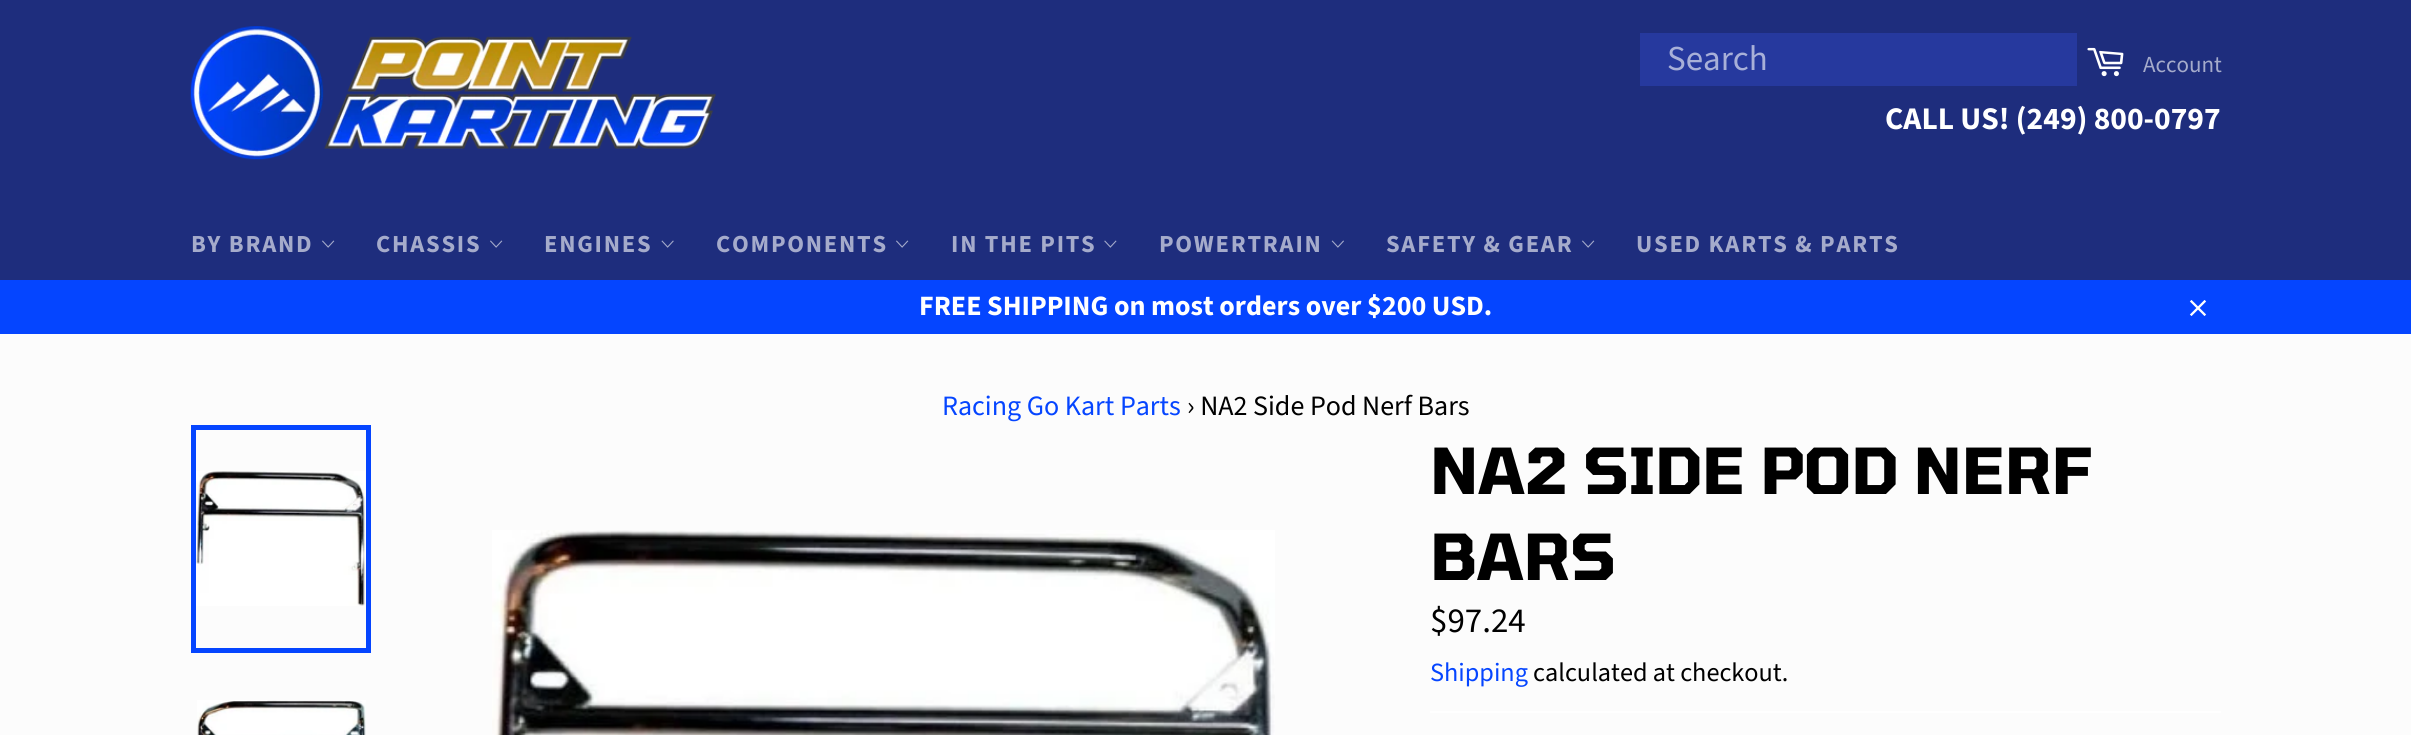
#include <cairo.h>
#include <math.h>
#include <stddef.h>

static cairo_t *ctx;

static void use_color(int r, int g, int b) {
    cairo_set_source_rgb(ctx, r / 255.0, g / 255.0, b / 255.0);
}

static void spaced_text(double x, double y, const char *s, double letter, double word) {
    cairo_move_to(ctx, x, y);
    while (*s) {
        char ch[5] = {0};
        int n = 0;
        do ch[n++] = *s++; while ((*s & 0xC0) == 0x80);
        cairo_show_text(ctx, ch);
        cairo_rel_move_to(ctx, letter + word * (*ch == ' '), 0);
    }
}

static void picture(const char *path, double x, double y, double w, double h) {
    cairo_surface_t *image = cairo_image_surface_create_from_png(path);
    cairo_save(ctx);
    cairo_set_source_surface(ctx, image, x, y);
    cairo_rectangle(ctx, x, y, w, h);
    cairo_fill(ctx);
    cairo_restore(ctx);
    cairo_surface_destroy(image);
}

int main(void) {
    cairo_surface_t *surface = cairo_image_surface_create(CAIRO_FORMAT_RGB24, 2411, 735);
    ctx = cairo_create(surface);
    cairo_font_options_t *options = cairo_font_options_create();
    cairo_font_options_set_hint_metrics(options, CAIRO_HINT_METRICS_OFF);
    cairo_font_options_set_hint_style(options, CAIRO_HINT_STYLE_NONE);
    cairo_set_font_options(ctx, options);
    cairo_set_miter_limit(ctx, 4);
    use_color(30, 45, 125);
    cairo_paint(ctx);
    picture("img1.png", 190, 26, 526, 134);
    use_color(38, 57, 158);
    cairo_rectangle(ctx, 1640, 33, 437, 53);
    cairo_fill(ctx);
    cairo_select_font_face(ctx, "Source Sans Pro", CAIRO_FONT_SLANT_NORMAL, CAIRO_FONT_WEIGHT_NORMAL);
    cairo_set_font_size(ctx, 35);
    use_color(168, 176, 216);
    cairo_move_to(ctx, 1667, 70);
    cairo_show_text(ctx, "Search");
    picture("img2.png", 2087, 47, 37, 30);
    cairo_set_font_size(ctx, 23);
    use_color(165, 171, 203);
    cairo_move_to(ctx, 2143, 72);
    cairo_show_text(ctx, "Account");
    cairo_select_font_face(ctx, "Source Sans Pro", CAIRO_FONT_SLANT_NORMAL, CAIRO_FONT_WEIGHT_BOLD);
    cairo_set_font_size(ctx, 31.5);
    use_color(255, 255, 255);
    cairo_move_to(ctx, 1885, 129);
    cairo_show_text(ctx, "CALL US! (249) 800-0797");
    cairo_set_font_size(ctx, 24.5);
    use_color(165, 171, 203);
    spaced_text(191, 252, "BY BRAND", 1.75, 0);
    picture("img3.png", 322, 240, 13, 8);
    spaced_text(376, 252, "CHASSIS", 1.75, 0);
    picture("img3.png", 490, 240, 13, 8);
    spaced_text(544, 252, "ENGINES", 1.75, 0);
    picture("img4.png", 661, 240, 13, 8);
    spaced_text(716, 252, "COMPONENTS", 1.75, 0);
    picture("img3.png", 896, 240, 13, 8);
    spaced_text(951, 252, "IN THE PITS", 1.75, 0);
    picture("img5.png", 1104, 240, 13, 8);
    spaced_text(1159, 252, "POWERTRAIN", 1.75, 0);
    picture("img6.png", 1331, 240, 13, 8);
    spaced_text(1386, 252, "SAFETY & GEAR", 1.75, 0);
    picture("img3.png", 1582, 240, 13, 8);
    spaced_text(1636, 252, "USED KARTS & PARTS", 1.75, 0);
    use_color(5, 69, 255);
    cairo_rectangle(ctx, 0, 280, 2411, 54);
    cairo_fill(ctx);
    cairo_set_font_size(ctx, 28);
    use_color(255, 255, 255);
    cairo_move_to(ctx, 919, 315);
    cairo_show_text(ctx, "FREE SHIPPING on most orders over $200 USD.");
    picture("img7.png", 2189, 300, 18, 16);
    use_color(252, 252, 252);
    cairo_rectangle(ctx, 0, 334, 2411, 401);
    cairo_fill(ctx);
    cairo_select_font_face(ctx, "Source Sans Pro", CAIRO_FONT_SLANT_NORMAL, CAIRO_FONT_WEIGHT_NORMAL);
    use_color(5, 69, 255);
    cairo_move_to(ctx, 942, 415);
    cairo_show_text(ctx, "Racing Go Kart Parts");
    use_color(0, 0, 0);
    cairo_move_to(ctx, 1187, 415);
    cairo_show_text(ctx, "› NA2 Side Pod Nerf Bars");
    picture("img8.png", 196, 471, 169, 135);
    cairo_rectangle(ctx, 193.5, 427.5, 175, 223);
    use_color(5, 69, 255);
    cairo_set_line_width(ctx, 5);
    cairo_stroke(ctx);
    picture("img9.png", 197, 700, 169, 35);
    picture("img10.png", 492, 530, 783, 205);
    cairo_select_font_face(ctx, "Tomorrow", CAIRO_FONT_SLANT_NORMAL, CAIRO_FONT_WEIGHT_BOLD);
    cairo_set_font_size(ctx, 63);
    use_color(0, 0, 0);
    cairo_move_to(ctx, 1430, 494);
    cairo_show_text(ctx, "NA2 SIDE POD NERF");
    cairo_move_to(ctx, 1430, 580);
    cairo_show_text(ctx, "BARS");
    cairo_select_font_face(ctx, "Source Sans Pro", CAIRO_FONT_SLANT_NORMAL, CAIRO_FONT_WEIGHT_NORMAL);
    cairo_set_font_size(ctx, 35);
    cairo_move_to(ctx, 1430, 632);
    cairo_show_text(ctx, "$97.24");
    cairo_set_font_size(ctx, 26.25);
    use_color(5, 69, 255);
    cairo_move_to(ctx, 1430, 681);
    cairo_show_text(ctx, "Shipping");
    use_color(0, 0, 0);
    cairo_move_to(ctx, 1533, 681);
    cairo_show_text(ctx, "calculated at checkout.");
    use_color(255, 255, 255);
    cairo_rectangle(ctx, 1430, 711, 791, 2);
    cairo_fill(ctx);
    cairo_surface_write_to_png(surface, "result.png");
    cairo_font_options_destroy(options);
    cairo_destroy(ctx);
    cairo_surface_destroy(surface);
    return 0;
}
